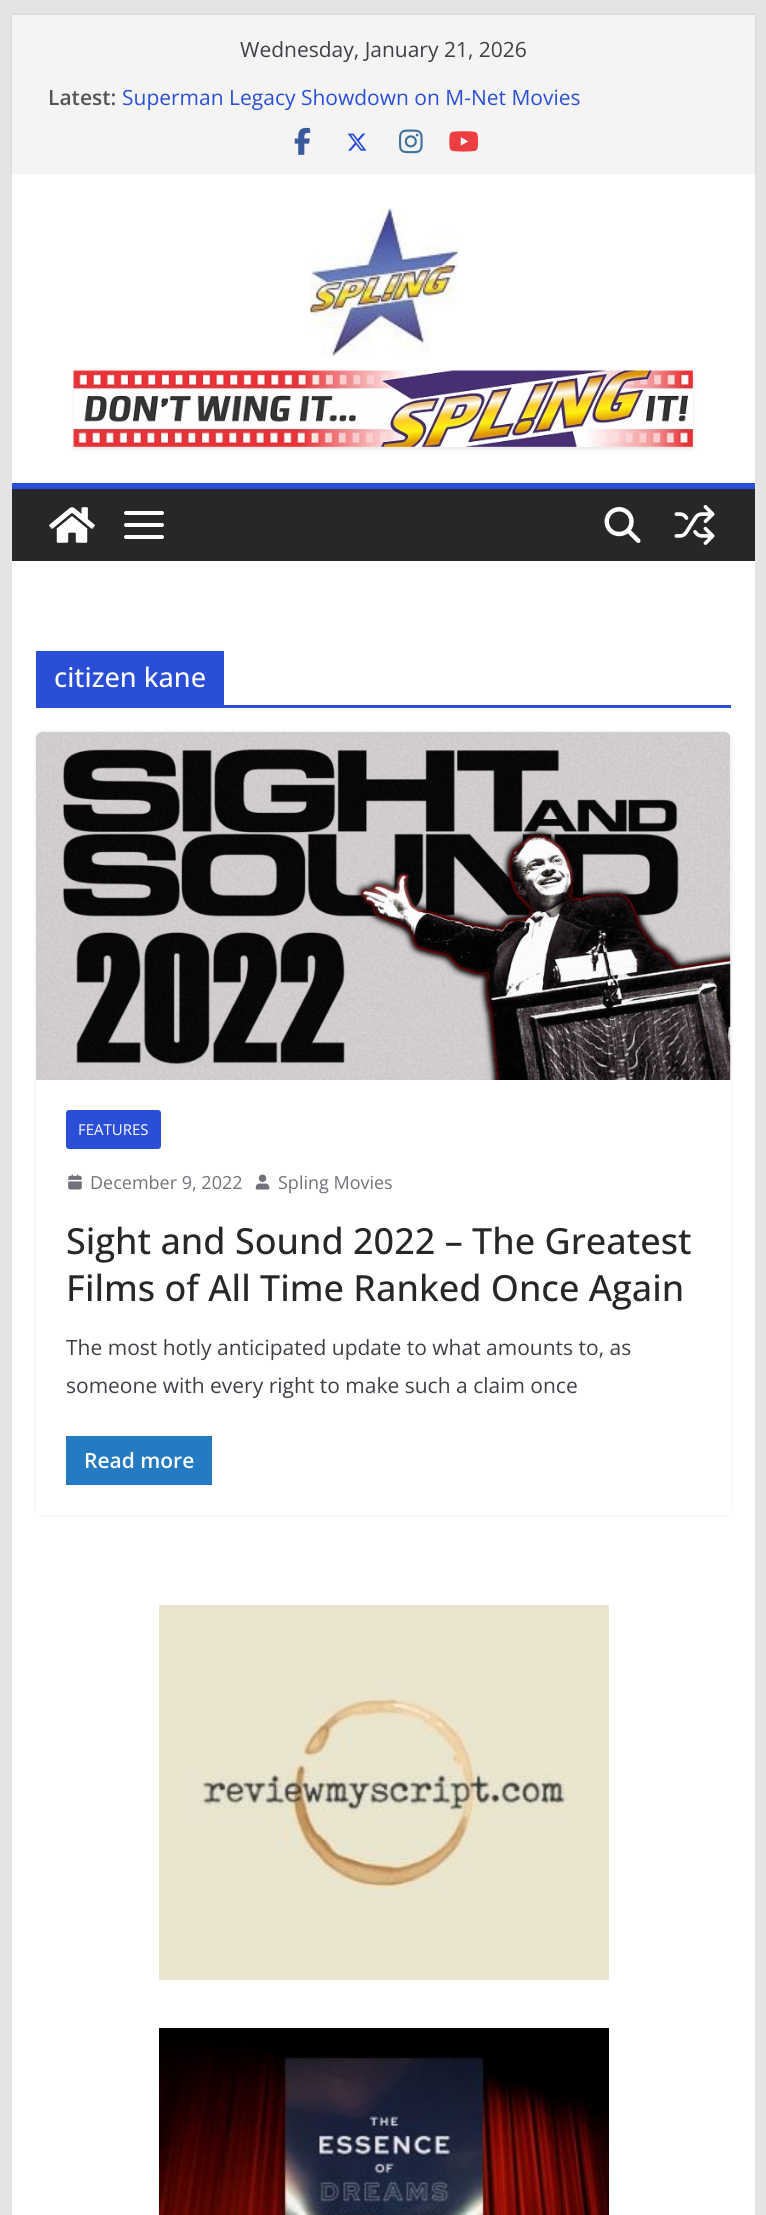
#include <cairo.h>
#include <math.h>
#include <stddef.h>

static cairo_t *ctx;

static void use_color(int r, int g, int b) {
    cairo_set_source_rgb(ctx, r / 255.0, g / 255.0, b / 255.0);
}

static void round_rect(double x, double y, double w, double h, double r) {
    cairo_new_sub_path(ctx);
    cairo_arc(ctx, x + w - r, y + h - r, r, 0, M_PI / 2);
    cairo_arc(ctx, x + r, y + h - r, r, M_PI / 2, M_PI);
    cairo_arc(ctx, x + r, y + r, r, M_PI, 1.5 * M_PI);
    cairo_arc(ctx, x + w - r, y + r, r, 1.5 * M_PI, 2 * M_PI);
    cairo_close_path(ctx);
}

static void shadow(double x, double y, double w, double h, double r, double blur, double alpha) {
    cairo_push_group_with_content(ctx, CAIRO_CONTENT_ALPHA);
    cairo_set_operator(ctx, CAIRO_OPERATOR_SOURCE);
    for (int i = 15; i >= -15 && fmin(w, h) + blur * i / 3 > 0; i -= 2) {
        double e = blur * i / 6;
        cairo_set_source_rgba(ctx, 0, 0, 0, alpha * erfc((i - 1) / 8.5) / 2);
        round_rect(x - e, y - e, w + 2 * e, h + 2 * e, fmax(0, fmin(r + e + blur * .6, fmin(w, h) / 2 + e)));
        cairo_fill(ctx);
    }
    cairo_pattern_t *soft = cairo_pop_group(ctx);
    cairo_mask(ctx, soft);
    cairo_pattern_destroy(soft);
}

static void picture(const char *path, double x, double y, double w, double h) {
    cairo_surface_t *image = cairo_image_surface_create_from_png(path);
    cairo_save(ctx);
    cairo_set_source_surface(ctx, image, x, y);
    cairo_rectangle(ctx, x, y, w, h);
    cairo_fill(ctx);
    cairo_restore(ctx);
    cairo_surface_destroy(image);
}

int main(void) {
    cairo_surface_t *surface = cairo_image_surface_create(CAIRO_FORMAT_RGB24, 766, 2215);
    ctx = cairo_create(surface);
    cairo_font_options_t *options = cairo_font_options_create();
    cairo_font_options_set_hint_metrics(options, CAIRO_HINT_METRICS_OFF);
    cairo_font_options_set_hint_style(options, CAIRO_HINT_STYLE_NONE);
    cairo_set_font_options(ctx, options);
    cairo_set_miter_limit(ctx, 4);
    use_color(228, 228, 231);
    cairo_paint(ctx);
    use_color(255, 255, 255);
    cairo_rectangle(ctx, 12, 173, 743, 310);
    cairo_fill(ctx);
    use_color(0, 0, 0);
    shadow(12, 15, 743, 158, 0, 1.5, 0.1);
    use_color(244, 244, 245);
    cairo_rectangle(ctx, 12, 15, 743, 158);
    cairo_fill(ctx);
    cairo_select_font_face(ctx, "Open Sans", CAIRO_FONT_SLANT_NORMAL, CAIRO_FONT_WEIGHT_NORMAL);
    cairo_set_font_size(ctx, 21);
    use_color(63, 63, 70);
    cairo_move_to(ctx, 240, 57);
    cairo_show_text(ctx, "Wednesday, January 21, 2026");
    cairo_select_font_face(ctx, "Open Sans SemiBold", CAIRO_FONT_SLANT_NORMAL, CAIRO_FONT_WEIGHT_NORMAL);
    use_color(85, 85, 85);
    cairo_move_to(ctx, 48, 105);
    cairo_show_text(ctx, "Latest:");
    cairo_select_font_face(ctx, "Open Sans", CAIRO_FONT_SLANT_NORMAL, CAIRO_FONT_WEIGHT_NORMAL);
    use_color(42, 79, 214);
    cairo_move_to(ctx, 122, 105);
    cairo_show_text(ctx, "Superman Legacy Showdown on M-Net Movies");
    picture("img1.png", 294, 127, 17, 28);
    picture("img2.png", 347, 133, 20, 18);
    picture("img3.png", 399, 129, 24, 25);
    picture("img4.png", 449, 131, 30, 21);
    picture("img5.png", 310, 208, 148, 148);
    use_color(0, 0, 0);
    shadow(74, 372, 619, 77, 0, 2, 0.1);
    picture("img6.png", 73, 370, 620, 77);
    use_color(39, 39, 42);
    cairo_rectangle(ctx, 12, 489, 743, 72);
    cairo_fill(ctx);
    use_color(42, 79, 214);
    cairo_rectangle(ctx, 12, 483, 743, 6);
    cairo_fill(ctx);
    picture("img7.png", 49, 507, 46, 36);
    picture("img8.png", 124, 511, 40, 28);
    picture("img9.png", 604, 507, 37, 36);
    picture("img10.png", 674, 505, 41, 40);
    use_color(255, 255, 255);
    cairo_rectangle(ctx, 12, 561, 743, 1654);
    cairo_fill(ctx);
    use_color(42, 79, 214);
    cairo_rectangle(ctx, 36, 705, 695, 3);
    cairo_fill(ctx);
    cairo_rectangle(ctx, 36, 651, 188, 54);
    cairo_fill(ctx);
    cairo_select_font_face(ctx, "Open Sans Medium", CAIRO_FONT_SLANT_NORMAL, CAIRO_FONT_WEIGHT_NORMAL);
    cairo_set_font_size(ctx, 27);
    use_color(255, 255, 255);
    cairo_move_to(ctx, 54, 687);
    cairo_show_text(ctx, "citizen kane");
    cairo_save(ctx);
    cairo_set_fill_rule(ctx, CAIRO_FILL_RULE_EVEN_ODD);
    cairo_new_path(ctx);
    cairo_move_to(ctx, 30, 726);
    cairo_line_to(ctx, 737, 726);
    cairo_line_to(ctx, 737, 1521);
    cairo_line_to(ctx, 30, 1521);
    cairo_close_path(ctx);
    cairo_move_to(ctx, 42, 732);
    cairo_line_to(ctx, 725, 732);
    cairo_curve_to(ctx, 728.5, 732, 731, 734.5, 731, 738);
    cairo_line_to(ctx, 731, 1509);
    cairo_curve_to(ctx, 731, 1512.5, 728.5, 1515, 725, 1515);
    cairo_line_to(ctx, 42, 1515);
    cairo_curve_to(ctx, 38.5, 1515, 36, 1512.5, 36, 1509);
    cairo_line_to(ctx, 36, 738);
    cairo_curve_to(ctx, 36, 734.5, 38.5, 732, 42, 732);
    cairo_close_path(ctx);
    cairo_clip(ctx);
    use_color(228, 228, 231);
    shadow(36, 732, 695, 783, 6, 1.5, 1);
    cairo_restore(ctx);
    picture("img11.png", 36, 732, 695, 348);
    use_color(42, 79, 214);
    round_rect(66, 1110, 95, 39, 3);
    cairo_fill(ctx);
    cairo_select_font_face(ctx, "Open Sans", CAIRO_FONT_SLANT_NORMAL, CAIRO_FONT_WEIGHT_NORMAL);
    cairo_set_font_size(ctx, 15);
    use_color(255, 255, 255);
    cairo_move_to(ctx, 78, 1135);
    cairo_show_text(ctx, "FEATURES");
    picture("img12.png", 68, 1174, 14, 16);
    cairo_set_font_size(ctx, 18);
    use_color(113, 113, 122);
    cairo_move_to(ctx, 90, 1189);
    cairo_show_text(ctx, "December 9, 2022");
    picture("img13.png", 255, 1174, 15, 16);
    cairo_move_to(ctx, 278, 1189);
    cairo_show_text(ctx, "Spling Movies");
    cairo_select_font_face(ctx, "Open Sans Medium", CAIRO_FONT_SLANT_NORMAL, CAIRO_FONT_WEIGHT_NORMAL);
    cairo_set_font_size(ctx, 36);
    use_color(39, 39, 42);
    cairo_move_to(ctx, 66, 1254);
    cairo_show_text(ctx, "Sight and Sound 2022 – The Greatest");
    cairo_move_to(ctx, 66, 1301);
    cairo_show_text(ctx, "Films of All Time Ranked Once Again");
    cairo_select_font_face(ctx, "Open Sans", CAIRO_FONT_SLANT_NORMAL, CAIRO_FONT_WEIGHT_NORMAL);
    cairo_set_font_size(ctx, 21);
    use_color(63, 63, 70);
    cairo_move_to(ctx, 66, 1355);
    cairo_show_text(ctx, "The most hotly anticipated update to what amounts to, as");
    cairo_move_to(ctx, 66, 1393);
    cairo_show_text(ctx, "someone with every right to make such a claim once");
    use_color(42, 79, 214);
    cairo_rectangle(ctx, 66, 1436, 146, 49);
    cairo_fill(ctx);
    use_color(37, 123, 193);
    round_rect(66, 1436, 146, 49, 3);
    cairo_fill(ctx);
    cairo_select_font_face(ctx, "Open Sans SemiBold", CAIRO_FONT_SLANT_NORMAL, CAIRO_FONT_WEIGHT_NORMAL);
    use_color(255, 255, 255);
    cairo_move_to(ctx, 84, 1468);
    cairo_show_text(ctx, "Read more");
    picture("img14.png", 159, 1605, 450, 375);
    picture("img15.png", 159, 2028, 450, 187);
    cairo_surface_write_to_png(surface, "result.png");
    cairo_font_options_destroy(options);
    cairo_destroy(ctx);
    cairo_surface_destroy(surface);
    return 0;
}
